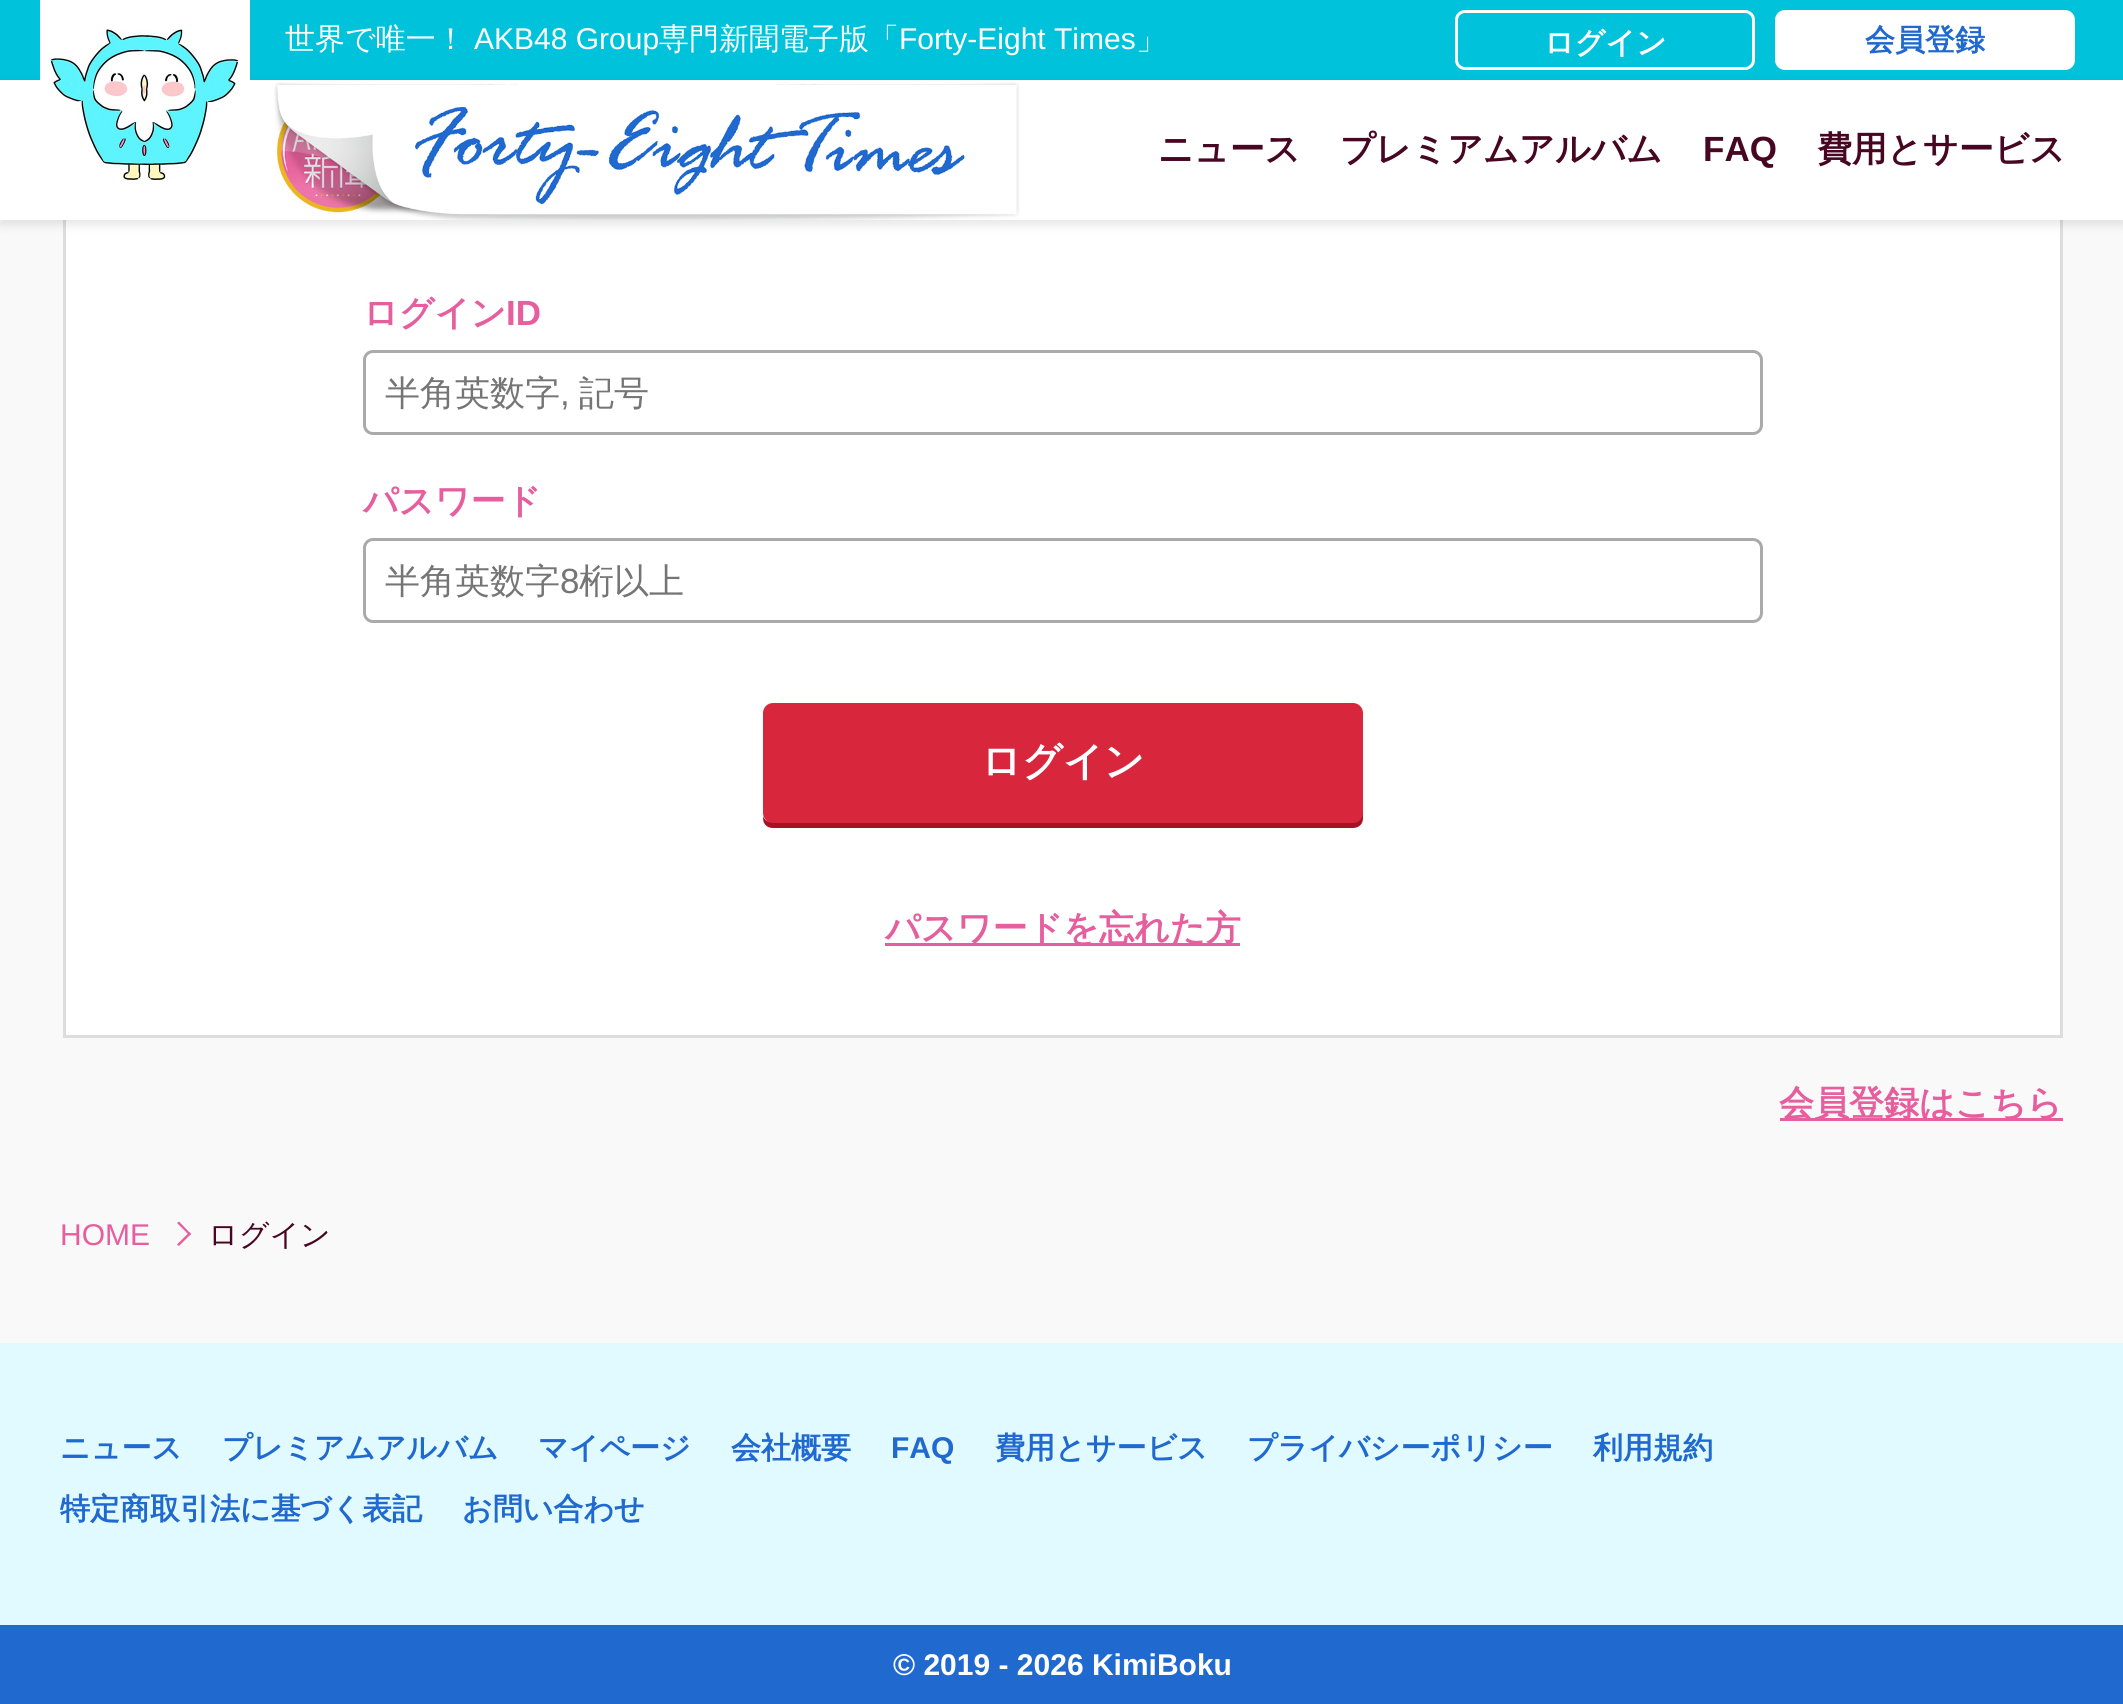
#include <cairo.h>
#include <math.h>
#include <stddef.h>

static cairo_t *ctx;

static void use_color(int r, int g, int b) {
    cairo_set_source_rgb(ctx, r / 255.0, g / 255.0, b / 255.0);
}

static void round_rect(double x, double y, double w, double h, double r) {
    cairo_new_sub_path(ctx);
    cairo_arc(ctx, x + w - r, y + h - r, r, 0, M_PI / 2);
    cairo_arc(ctx, x + r, y + h - r, r, M_PI / 2, M_PI);
    cairo_arc(ctx, x + r, y + r, r, M_PI, 1.5 * M_PI);
    cairo_arc(ctx, x + w - r, y + r, r, 1.5 * M_PI, 2 * M_PI);
    cairo_close_path(ctx);
}

static void shadow(double x, double y, double w, double h, double r, double blur, double alpha) {
    cairo_push_group_with_content(ctx, CAIRO_CONTENT_ALPHA);
    cairo_set_operator(ctx, CAIRO_OPERATOR_SOURCE);
    for (int i = 15; i >= -15 && fmin(w, h) + blur * i / 3 > 0; i -= 2) {
        double e = blur * i / 6;
        cairo_set_source_rgba(ctx, 0, 0, 0, alpha * erfc((i - 1) / 8.5) / 2);
        round_rect(x - e, y - e, w + 2 * e, h + 2 * e, fmax(0, fmin(r + e + blur * .6, fmin(w, h) / 2 + e)));
        cairo_fill(ctx);
    }
    cairo_pattern_t *soft = cairo_pop_group(ctx);
    cairo_mask(ctx, soft);
    cairo_pattern_destroy(soft);
}

static void picture(const char *path, double x, double y, double w, double h) {
    cairo_surface_t *image = cairo_image_surface_create_from_png(path);
    cairo_save(ctx);
    cairo_set_source_surface(ctx, image, x, y);
    cairo_rectangle(ctx, x, y, w, h);
    cairo_fill(ctx);
    cairo_restore(ctx);
    cairo_surface_destroy(image);
}

int main(void) {
    cairo_surface_t *surface = cairo_image_surface_create(CAIRO_FORMAT_RGB24, 2123, 1704);
    ctx = cairo_create(surface);
    cairo_font_options_t *options = cairo_font_options_create();
    cairo_font_options_set_hint_metrics(options, CAIRO_HINT_METRICS_OFF);
    cairo_font_options_set_hint_style(options, CAIRO_HINT_STYLE_NONE);
    cairo_set_font_options(ctx, options);
    cairo_set_miter_limit(ctx, 4);
    use_color(249, 249, 249);
    cairo_paint(ctx);
    use_color(255, 255, 255);
    cairo_rectangle(ctx, 66, 220, 1994, 815);
    cairo_fill(ctx);
    cairo_rectangle(ctx, 64.5, -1.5, 1997, 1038);
    use_color(221, 221, 221);
    cairo_set_line_width(ctx, 3);
    cairo_stroke(ctx);
    use_color(0, 194, 219);
    cairo_rectangle(ctx, 0, 0, 2123, 80);
    cairo_fill(ctx);
    cairo_select_font_face(ctx, "WenQuanYi Zen Hei Medium", CAIRO_FONT_SLANT_NORMAL, CAIRO_FONT_WEIGHT_NORMAL);
    cairo_set_font_size(ctx, 30);
    use_color(255, 255, 255);
    cairo_move_to(ctx, 285, 49);
    cairo_show_text(ctx, "世界で唯一！");
    cairo_select_font_face(ctx, "Liberation Sans", CAIRO_FONT_SLANT_NORMAL, CAIRO_FONT_WEIGHT_NORMAL);
    cairo_move_to(ctx, 474, 49);
    cairo_show_text(ctx, "AKB48 Group");
    cairo_select_font_face(ctx, "WenQuanYi Zen Hei Medium", CAIRO_FONT_SLANT_NORMAL, CAIRO_FONT_WEIGHT_NORMAL);
    cairo_move_to(ctx, 659, 49);
    cairo_show_text(ctx, "専門新聞電子版「");
    cairo_select_font_face(ctx, "Liberation Sans", CAIRO_FONT_SLANT_NORMAL, CAIRO_FONT_WEIGHT_NORMAL);
    cairo_move_to(ctx, 899, 49);
    cairo_show_text(ctx, "Forty-Eight Times");
    cairo_select_font_face(ctx, "WenQuanYi Zen Hei Medium", CAIRO_FONT_SLANT_NORMAL, CAIRO_FONT_WEIGHT_NORMAL);
    cairo_move_to(ctx, 1136, 49);
    cairo_show_text(ctx, "」");
    use_color(0, 0, 0);
    shadow(0, 85, 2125, 140, 0, 5, 0.1);
    round_rect(1456.5, 11.5, 297, 57, 8.5);
    use_color(255, 255, 255);
    cairo_stroke(ctx);
    cairo_select_font_face(ctx, "WenQuanYi Zen Hei", CAIRO_FONT_SLANT_NORMAL, CAIRO_FONT_WEIGHT_BOLD);
    cairo_move_to(ctx, 1544, 53);
    cairo_show_text(ctx, "ログイン");
    round_rect(1775, 10, 300, 60, 10);
    cairo_fill(ctx);
    use_color(32, 105, 207);
    cairo_move_to(ctx, 1865, 50);
    cairo_show_text(ctx, "会員登録");
    use_color(255, 255, 255);
    cairo_rectangle(ctx, 0, 80, 2123, 140);
    cairo_fill(ctx);
    cairo_rectangle(ctx, 40, 0, 210, 80);
    cairo_fill(ctx);
    picture("img1.png", 45, 29, 194, 152);
    picture("img2.png", 274, 82, 746, 138);
    cairo_set_font_size(ctx, 35);
    use_color(71, 6, 34);
    cairo_move_to(ctx, 1158, 161);
    cairo_show_text(ctx, "ニュース");
    cairo_move_to(ctx, 1340, 161);
    cairo_show_text(ctx, "プレミアムアルバム");
    cairo_select_font_face(ctx, "Liberation Sans", CAIRO_FONT_SLANT_NORMAL, CAIRO_FONT_WEIGHT_BOLD);
    cairo_move_to(ctx, 1703, 161);
    cairo_show_text(ctx, "FAQ");
    cairo_select_font_face(ctx, "WenQuanYi Zen Hei", CAIRO_FONT_SLANT_NORMAL, CAIRO_FONT_WEIGHT_BOLD);
    cairo_move_to(ctx, 1817, 161);
    cairo_show_text(ctx, "費用とサービス");
    use_color(230, 94, 158);
    cairo_move_to(ctx, 363, 325);
    cairo_show_text(ctx, "ログイン");
    cairo_select_font_face(ctx, "Liberation Sans", CAIRO_FONT_SLANT_NORMAL, CAIRO_FONT_WEIGHT_BOLD);
    cairo_move_to(ctx, 506, 325);
    cairo_show_text(ctx, "ID");
    round_rect(364.5, 351.5, 1397, 82, 8.5);
    use_color(170, 170, 170);
    cairo_stroke(ctx);
    cairo_select_font_face(ctx, "WenQuanYi Zen Hei Medium", CAIRO_FONT_SLANT_NORMAL, CAIRO_FONT_WEIGHT_NORMAL);
    use_color(117, 117, 117);
    cairo_move_to(ctx, 385, 405);
    cairo_show_text(ctx, "半角英数字");
    cairo_select_font_face(ctx, "Liberation Sans", CAIRO_FONT_SLANT_NORMAL, CAIRO_FONT_WEIGHT_NORMAL);
    cairo_move_to(ctx, 560, 405);
    cairo_show_text(ctx, ",");
    cairo_select_font_face(ctx, "WenQuanYi Zen Hei Medium", CAIRO_FONT_SLANT_NORMAL, CAIRO_FONT_WEIGHT_NORMAL);
    cairo_move_to(ctx, 579, 405);
    cairo_show_text(ctx, "記号");
    cairo_select_font_face(ctx, "WenQuanYi Zen Hei", CAIRO_FONT_SLANT_NORMAL, CAIRO_FONT_WEIGHT_BOLD);
    use_color(230, 94, 158);
    cairo_move_to(ctx, 363, 513);
    cairo_show_text(ctx, "パスワード");
    round_rect(364.5, 539.5, 1397, 82, 8.5);
    use_color(170, 170, 170);
    cairo_stroke(ctx);
    cairo_select_font_face(ctx, "WenQuanYi Zen Hei Medium", CAIRO_FONT_SLANT_NORMAL, CAIRO_FONT_WEIGHT_NORMAL);
    use_color(117, 117, 117);
    cairo_move_to(ctx, 385, 593);
    cairo_show_text(ctx, "半角英数字");
    cairo_select_font_face(ctx, "Liberation Sans", CAIRO_FONT_SLANT_NORMAL, CAIRO_FONT_WEIGHT_NORMAL);
    cairo_move_to(ctx, 560, 593);
    cairo_show_text(ctx, "8");
    cairo_select_font_face(ctx, "WenQuanYi Zen Hei Medium", CAIRO_FONT_SLANT_NORMAL, CAIRO_FONT_WEIGHT_NORMAL);
    cairo_move_to(ctx, 579, 593);
    cairo_show_text(ctx, "桁以上");
    use_color(164, 18, 36);
    cairo_new_path(ctx);
    cairo_move_to(ctx, 763, 816);
    cairo_line_to(ctx, 763, 818);
    cairo_curve_to(ctx, 763, 824, 767, 828, 773, 828);
    cairo_line_to(ctx, 1353, 828);
    cairo_curve_to(ctx, 1359, 828, 1363, 824, 1363, 818);
    cairo_line_to(ctx, 1363, 718);
    cairo_line_to(ctx, 1362, 715);
    cairo_line_to(ctx, 1362, 812);
    cairo_curve_to(ctx, 1362, 818, 1358, 822, 1352, 822);
    cairo_line_to(ctx, 772, 822);
    cairo_curve_to(ctx, 768, 822, 764, 820, 763, 816);
    cairo_close_path(ctx);
    cairo_fill(ctx);
    use_color(216, 38, 60);
    round_rect(763, 703, 600, 120, 10);
    cairo_fill(ctx);
    cairo_select_font_face(ctx, "WenQuanYi Zen Hei", CAIRO_FONT_SLANT_NORMAL, CAIRO_FONT_WEIGHT_BOLD);
    cairo_set_font_size(ctx, 40);
    use_color(255, 255, 255);
    cairo_move_to(ctx, 981, 775);
    cairo_show_text(ctx, "ログイン");
    use_color(230, 94, 158);
    cairo_rectangle(ctx, 885, 943, 355, 3);
    cairo_fill(ctx);
    cairo_set_font_size(ctx, 35);
    cairo_move_to(ctx, 885, 940);
    cairo_show_text(ctx, "パスワードを忘れた方");
    cairo_rectangle(ctx, 1780, 1118, 283, 3);
    cairo_fill(ctx);
    cairo_move_to(ctx, 1779, 1115);
    cairo_show_text(ctx, "会員登録はこちら");
    cairo_select_font_face(ctx, "Liberation Sans", CAIRO_FONT_SLANT_NORMAL, CAIRO_FONT_WEIGHT_NORMAL);
    cairo_set_font_size(ctx, 30);
    cairo_move_to(ctx, 60, 1245);
    cairo_show_text(ctx, "HOME");
    cairo_new_path(ctx);
    cairo_move_to(ctx, 179, 1221.5);
    cairo_line_to(ctx, 191, 1234);
    cairo_line_to(ctx, 189.5, 1235.5);
    cairo_line_to(ctx, 177, 1223);
    cairo_close_path(ctx);
    cairo_fill(ctx);
    cairo_new_path(ctx);
    cairo_move_to(ctx, 189.5, 1232);
    cairo_line_to(ctx, 191, 1234);
    cairo_line_to(ctx, 179, 1246);
    cairo_line_to(ctx, 177, 1244.5);
    cairo_close_path(ctx);
    cairo_fill(ctx);
    cairo_select_font_face(ctx, "WenQuanYi Zen Hei Medium", CAIRO_FONT_SLANT_NORMAL, CAIRO_FONT_WEIGHT_NORMAL);
    use_color(71, 6, 34);
    cairo_move_to(ctx, 208, 1245);
    cairo_show_text(ctx, "ログイン");
    use_color(224, 250, 255);
    cairo_rectangle(ctx, 0, 1343, 2123, 282);
    cairo_fill(ctx);
    cairo_select_font_face(ctx, "WenQuanYi Zen Hei", CAIRO_FONT_SLANT_NORMAL, CAIRO_FONT_WEIGHT_BOLD);
    use_color(32, 105, 207);
    cairo_move_to(ctx, 60, 1458);
    cairo_show_text(ctx, "ニュース");
    cairo_move_to(ctx, 222, 1458);
    cairo_show_text(ctx, "プレミアムアルバム");
    cairo_move_to(ctx, 538, 1458);
    cairo_show_text(ctx, "マイページ");
    cairo_move_to(ctx, 731, 1458);
    cairo_show_text(ctx, "会社概要");
    cairo_select_font_face(ctx, "Liberation Sans", CAIRO_FONT_SLANT_NORMAL, CAIRO_FONT_WEIGHT_BOLD);
    cairo_move_to(ctx, 891, 1458);
    cairo_show_text(ctx, "FAQ");
    cairo_select_font_face(ctx, "WenQuanYi Zen Hei", CAIRO_FONT_SLANT_NORMAL, CAIRO_FONT_WEIGHT_BOLD);
    cairo_move_to(ctx, 995, 1458);
    cairo_show_text(ctx, "費用とサービス");
    cairo_move_to(ctx, 1247, 1458);
    cairo_show_text(ctx, "プライバシーポリシー");
    cairo_move_to(ctx, 1593, 1458);
    cairo_show_text(ctx, "利用規約");
    cairo_move_to(ctx, 60, 1519);
    cairo_show_text(ctx, "特定商取引法に基づく表記");
    cairo_move_to(ctx, 462, 1519);
    cairo_show_text(ctx, "お問い合わせ");
    cairo_rectangle(ctx, 0, 1625, 2123, 79);
    cairo_fill(ctx);
    cairo_select_font_face(ctx, "Liberation Sans", CAIRO_FONT_SLANT_NORMAL, CAIRO_FONT_WEIGHT_BOLD);
    use_color(255, 255, 255);
    cairo_move_to(ctx, 893, 1675);
    cairo_show_text(ctx, "© 2019 - 2026 KimiBoku");
    cairo_surface_write_to_png(surface, "result.png");
    cairo_font_options_destroy(options);
    cairo_destroy(ctx);
    cairo_surface_destroy(surface);
    return 0;
}
